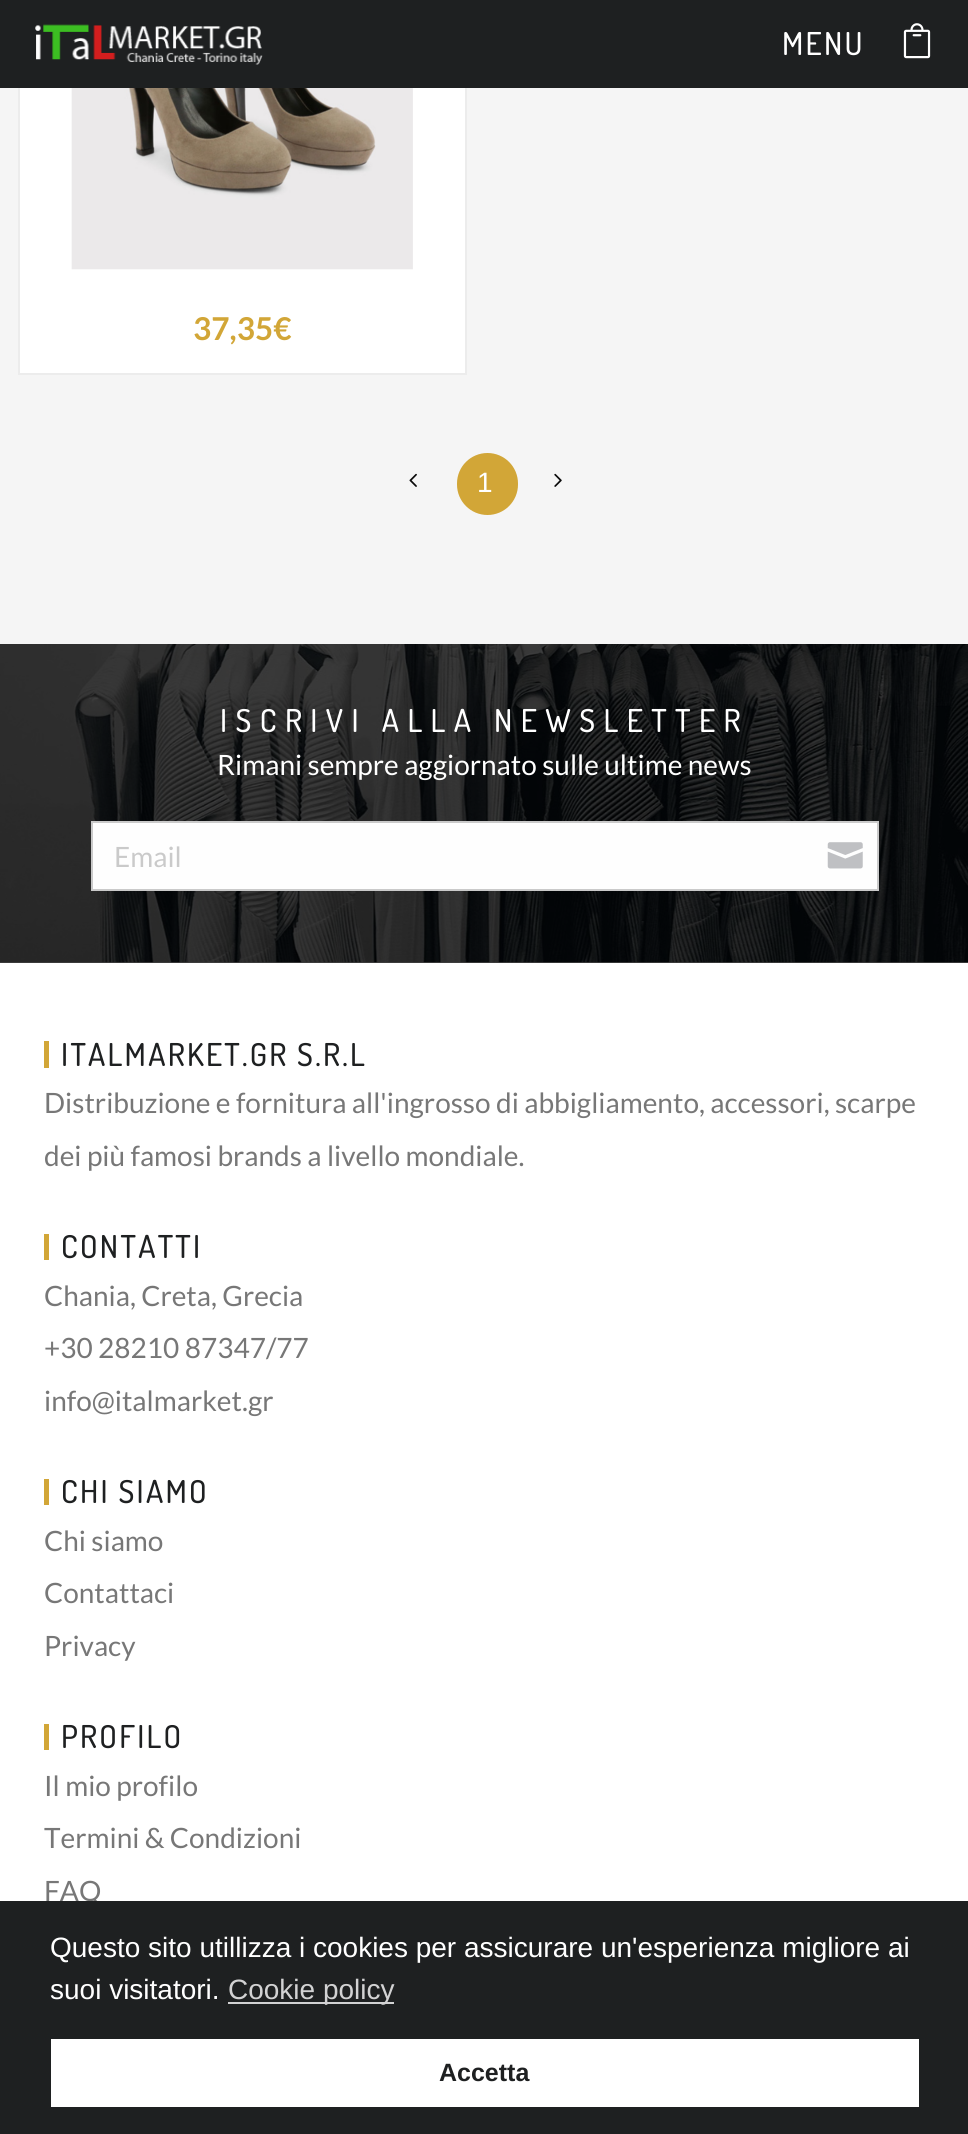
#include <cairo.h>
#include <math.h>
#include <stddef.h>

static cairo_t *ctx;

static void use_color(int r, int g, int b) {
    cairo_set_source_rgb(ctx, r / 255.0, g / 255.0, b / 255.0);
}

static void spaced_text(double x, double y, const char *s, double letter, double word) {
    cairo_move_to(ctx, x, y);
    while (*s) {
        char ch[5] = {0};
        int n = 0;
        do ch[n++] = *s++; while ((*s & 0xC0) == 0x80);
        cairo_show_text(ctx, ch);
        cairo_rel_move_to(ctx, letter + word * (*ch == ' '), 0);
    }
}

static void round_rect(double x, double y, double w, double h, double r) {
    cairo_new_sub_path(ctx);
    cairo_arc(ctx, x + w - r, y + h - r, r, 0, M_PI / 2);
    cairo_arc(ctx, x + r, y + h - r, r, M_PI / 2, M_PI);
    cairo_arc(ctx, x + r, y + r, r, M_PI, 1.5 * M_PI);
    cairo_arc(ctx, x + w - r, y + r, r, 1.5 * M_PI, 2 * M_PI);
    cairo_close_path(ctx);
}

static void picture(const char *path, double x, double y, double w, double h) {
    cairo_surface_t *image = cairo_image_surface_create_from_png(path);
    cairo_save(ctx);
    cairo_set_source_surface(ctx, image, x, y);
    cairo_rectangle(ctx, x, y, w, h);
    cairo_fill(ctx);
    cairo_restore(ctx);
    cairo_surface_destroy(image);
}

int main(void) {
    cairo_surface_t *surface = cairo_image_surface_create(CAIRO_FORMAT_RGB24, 968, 2134);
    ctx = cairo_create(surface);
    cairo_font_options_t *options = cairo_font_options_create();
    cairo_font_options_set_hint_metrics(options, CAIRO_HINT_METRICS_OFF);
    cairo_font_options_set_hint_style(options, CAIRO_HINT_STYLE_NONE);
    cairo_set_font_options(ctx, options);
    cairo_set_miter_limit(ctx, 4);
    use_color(255, 255, 255);
    cairo_paint(ctx);
    use_color(64, 64, 64);
    cairo_rectangle(ctx, 0, 962, 968, 1);
    cairo_fill(ctx);
    use_color(245, 245, 245);
    cairo_rectangle(ctx, 0, 88, 968, 556);
    cairo_fill(ctx);
    use_color(255, 255, 255);
    cairo_rectangle(ctx, 20, 88, 445, 285);
    cairo_fill(ctx);
    cairo_rectangle(ctx, 19, -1, 447, 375);
    use_color(236, 236, 236);
    cairo_stroke(ctx);
    use_color(30, 32, 33);
    cairo_rectangle(ctx, 0, 0, 968, 88);
    cairo_fill(ctx);
    picture("img1.png", 35, 24, 228, 41);
    cairo_select_font_face(ctx, "Dosis Medium", CAIRO_FONT_SLANT_NORMAL, CAIRO_FONT_WEIGHT_NORMAL);
    cairo_set_font_size(ctx, 31.5);
    use_color(255, 255, 255);
    spaced_text(782, 55, "MENU", 2.25, 0);
    picture("img2.png", 903, 23, 28, 36);
    picture("img3.png", 71, 88, 342, 182);
    cairo_select_font_face(ctx, "Lato", CAIRO_FONT_SLANT_NORMAL, CAIRO_FONT_WEIGHT_BOLD);
    use_color(210, 166, 55);
    cairo_move_to(ctx, 193, 340);
    cairo_show_text(ctx, "37,35€");
    picture("img4.png", 409, 473, 8, 14);
    round_rect(457, 453, 61, 62, 30.5);
    cairo_fill(ctx);
    cairo_select_font_face(ctx, "Liberation Sans", CAIRO_FONT_SLANT_NORMAL, CAIRO_FONT_WEIGHT_NORMAL);
    cairo_set_font_size(ctx, 28);
    use_color(255, 255, 255);
    cairo_move_to(ctx, 477, 492);
    cairo_show_text(ctx, "1");
    picture("img5.png", 554, 473, 8, 14);
    picture("img6.png", 0, 644, 968, 319);
    cairo_select_font_face(ctx, "Dosis Medium", CAIRO_FONT_SLANT_NORMAL, CAIRO_FONT_WEIGHT_NORMAL);
    cairo_set_font_size(ctx, 31.5);
    spaced_text(220, 732, "ISCRIVI ALLA NEWSLETTER", 8.4, 0);
    cairo_select_font_face(ctx, "Lato", CAIRO_FONT_SLANT_NORMAL, CAIRO_FONT_WEIGHT_NORMAL);
    cairo_set_font_size(ctx, 28);
    cairo_move_to(ctx, 217, 775);
    cairo_show_text(ctx, "Rimani sempre aggiornato sulle ultime news");
    use_color(254, 254, 254);
    cairo_rectangle(ctx, 92, 822, 786, 68);
    cairo_fill_preserve(ctx);
    use_color(202, 202, 202);
    cairo_stroke(ctx);
    cairo_move_to(ctx, 114, 867);
    cairo_show_text(ctx, "Email");
    picture("img7.png", 827, 842, 36, 27);
    use_color(210, 166, 55);
    cairo_rectangle(ctx, 44, 1041, 5, 27);
    cairo_fill(ctx);
    cairo_select_font_face(ctx, "Dosis Medium", CAIRO_FONT_SLANT_NORMAL, CAIRO_FONT_WEIGHT_NORMAL);
    cairo_set_font_size(ctx, 31.5);
    use_color(30, 32, 33);
    spaced_text(61, 1066, "ITALMARKET.GR S.R.L", 2.25, 0);
    cairo_select_font_face(ctx, "Lato", CAIRO_FONT_SLANT_NORMAL, CAIRO_FONT_WEIGHT_NORMAL);
    cairo_set_font_size(ctx, 28);
    use_color(119, 119, 119);
    cairo_move_to(ctx, 44, 1113);
    cairo_show_text(ctx, "Distribuzione e fornitura all'ingrosso di abbigliamento, accessori, scarpe");
    cairo_move_to(ctx, 44, 1166);
    cairo_show_text(ctx, "dei più famosi brands a livello mondiale.");
    use_color(210, 166, 55);
    cairo_rectangle(ctx, 44, 1234, 5, 26);
    cairo_fill(ctx);
    cairo_select_font_face(ctx, "Dosis Medium", CAIRO_FONT_SLANT_NORMAL, CAIRO_FONT_WEIGHT_NORMAL);
    cairo_set_font_size(ctx, 31.5);
    use_color(30, 32, 33);
    spaced_text(61, 1258, "CONTATTI", 2.25, 0);
    cairo_select_font_face(ctx, "Lato", CAIRO_FONT_SLANT_NORMAL, CAIRO_FONT_WEIGHT_NORMAL);
    cairo_set_font_size(ctx, 28);
    use_color(119, 119, 119);
    cairo_move_to(ctx, 44, 1306);
    cairo_show_text(ctx, "Chania, Creta, Grecia");
    cairo_move_to(ctx, 44, 1358);
    cairo_show_text(ctx, "+30 28210 87347/77");
    cairo_move_to(ctx, 44, 1411);
    cairo_show_text(ctx, "info@italmarket.gr");
    use_color(210, 166, 55);
    cairo_rectangle(ctx, 44, 1479, 5, 26);
    cairo_fill(ctx);
    cairo_select_font_face(ctx, "Dosis Medium", CAIRO_FONT_SLANT_NORMAL, CAIRO_FONT_WEIGHT_NORMAL);
    cairo_set_font_size(ctx, 31.5);
    use_color(30, 32, 33);
    spaced_text(61, 1503, "CHI SIAMO", 2.25, 0);
    cairo_select_font_face(ctx, "Lato", CAIRO_FONT_SLANT_NORMAL, CAIRO_FONT_WEIGHT_NORMAL);
    cairo_set_font_size(ctx, 28);
    use_color(119, 119, 119);
    cairo_move_to(ctx, 44, 1551);
    cairo_show_text(ctx, "Chi siamo");
    cairo_move_to(ctx, 44, 1603);
    cairo_show_text(ctx, "Contattaci");
    cairo_move_to(ctx, 44, 1656);
    cairo_show_text(ctx, "Privacy");
    use_color(210, 166, 55);
    cairo_rectangle(ctx, 44, 1724, 5, 26);
    cairo_fill(ctx);
    cairo_select_font_face(ctx, "Dosis Medium", CAIRO_FONT_SLANT_NORMAL, CAIRO_FONT_WEIGHT_NORMAL);
    cairo_set_font_size(ctx, 31.5);
    use_color(30, 32, 33);
    spaced_text(61, 1748, "PROFILO", 2.25, 0);
    cairo_select_font_face(ctx, "Lato", CAIRO_FONT_SLANT_NORMAL, CAIRO_FONT_WEIGHT_NORMAL);
    cairo_set_font_size(ctx, 28);
    use_color(119, 119, 119);
    cairo_move_to(ctx, 44, 1796);
    cairo_show_text(ctx, "Il mio profilo");
    cairo_move_to(ctx, 44, 1848);
    cairo_show_text(ctx, "Termini & Condizioni");
    cairo_move_to(ctx, 44, 1901);
    cairo_show_text(ctx, "FAQ");
    use_color(30, 32, 33);
    cairo_rectangle(ctx, 0, 1901, 968, 233);
    cairo_fill(ctx);
    cairo_select_font_face(ctx, "Liberation Sans", CAIRO_FONT_SLANT_NORMAL, CAIRO_FONT_WEIGHT_NORMAL);
    use_color(255, 255, 255);
    cairo_move_to(ctx, 50, 1957);
    cairo_show_text(ctx, "Questo sito utillizza i cookies per assicurare un'esperienza migliore ai");
    cairo_move_to(ctx, 50, 1999);
    cairo_show_text(ctx, "suoi visitatori.");
    use_color(210, 210, 211);
    cairo_rectangle(ctx, 228, 2002, 166, 2);
    cairo_fill(ctx);
    cairo_move_to(ctx, 228, 1999);
    cairo_show_text(ctx, "Cookie policy");
    use_color(255, 255, 255);
    cairo_rectangle(ctx, 51, 2039, 868, 68);
    cairo_fill(ctx);
    cairo_select_font_face(ctx, "Liberation Sans", CAIRO_FONT_SLANT_NORMAL, CAIRO_FONT_WEIGHT_BOLD);
    cairo_set_font_size(ctx, 25);
    use_color(30, 32, 33);
    cairo_move_to(ctx, 439, 2081);
    cairo_show_text(ctx, "Accetta");
    cairo_surface_write_to_png(surface, "result.png");
    cairo_font_options_destroy(options);
    cairo_destroy(ctx);
    cairo_surface_destroy(surface);
    return 0;
}
